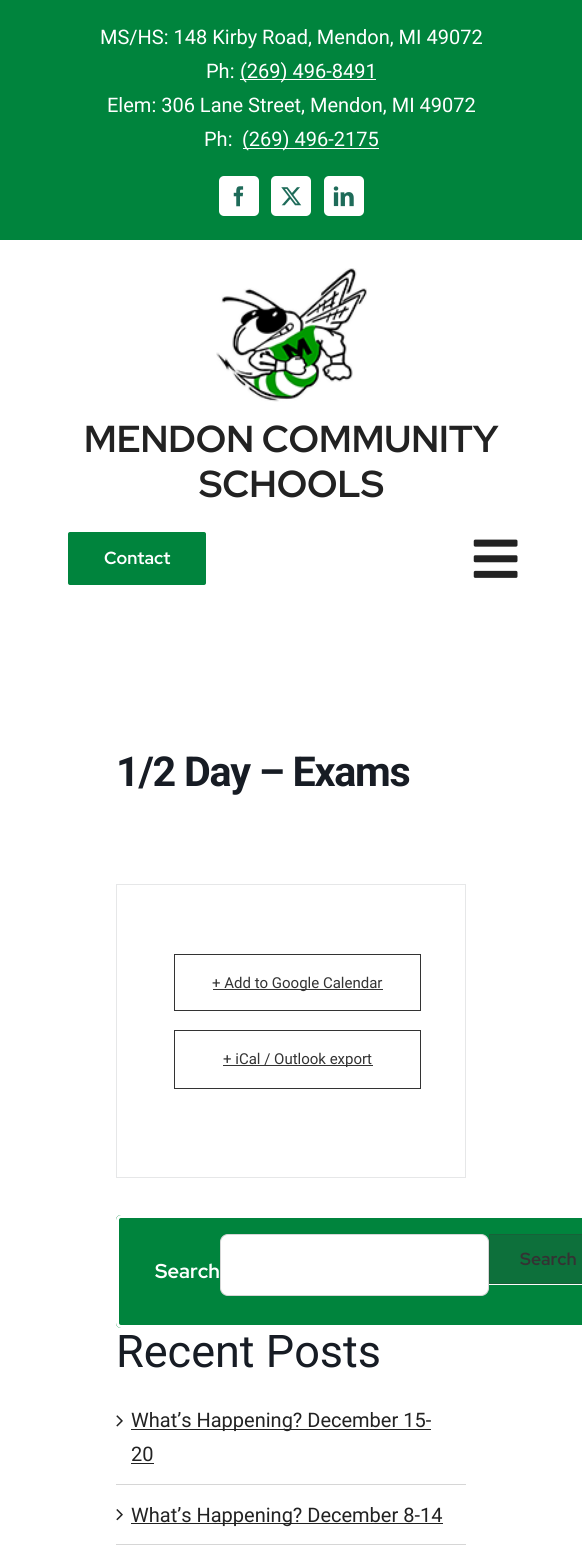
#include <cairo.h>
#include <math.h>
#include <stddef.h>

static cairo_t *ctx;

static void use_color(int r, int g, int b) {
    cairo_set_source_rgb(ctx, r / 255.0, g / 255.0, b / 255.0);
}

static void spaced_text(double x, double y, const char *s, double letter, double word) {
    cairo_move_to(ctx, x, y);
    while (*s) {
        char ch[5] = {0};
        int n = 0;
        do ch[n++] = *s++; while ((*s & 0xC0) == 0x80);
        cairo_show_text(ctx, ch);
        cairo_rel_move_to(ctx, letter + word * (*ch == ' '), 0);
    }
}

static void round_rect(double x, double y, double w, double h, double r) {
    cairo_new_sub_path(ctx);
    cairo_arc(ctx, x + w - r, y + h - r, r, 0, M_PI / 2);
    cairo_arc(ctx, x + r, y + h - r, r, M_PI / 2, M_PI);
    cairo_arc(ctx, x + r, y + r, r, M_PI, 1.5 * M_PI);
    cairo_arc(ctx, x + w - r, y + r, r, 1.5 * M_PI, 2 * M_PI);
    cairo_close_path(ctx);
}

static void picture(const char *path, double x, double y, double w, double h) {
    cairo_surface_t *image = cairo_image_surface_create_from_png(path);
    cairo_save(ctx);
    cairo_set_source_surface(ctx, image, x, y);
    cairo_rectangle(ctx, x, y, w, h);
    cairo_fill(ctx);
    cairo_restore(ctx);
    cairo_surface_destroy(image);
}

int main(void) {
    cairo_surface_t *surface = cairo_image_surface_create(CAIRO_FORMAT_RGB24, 582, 1545);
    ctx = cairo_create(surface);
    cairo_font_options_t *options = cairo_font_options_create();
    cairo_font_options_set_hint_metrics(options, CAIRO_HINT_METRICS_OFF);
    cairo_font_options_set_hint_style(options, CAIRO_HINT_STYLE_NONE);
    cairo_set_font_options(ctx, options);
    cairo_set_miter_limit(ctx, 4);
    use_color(255, 255, 255);
    cairo_paint(ctx);
    use_color(0, 132, 61);
    cairo_rectangle(ctx, 0, 0, 582, 240);
    cairo_fill(ctx);
    cairo_select_font_face(ctx, "Roboto", CAIRO_FONT_SLANT_NORMAL, CAIRO_FONT_WEIGHT_NORMAL);
    cairo_set_font_size(ctx, 20);
    use_color(255, 255, 255);
    cairo_move_to(ctx, 100, 44);
    cairo_show_text(ctx, "MS/HS: 148 Kirby Road, Mendon, MI 49072");
    cairo_move_to(ctx, 206, 78);
    cairo_show_text(ctx, "Ph:");
    cairo_rectangle(ctx, 240, 79, 136, 1);
    cairo_fill(ctx);
    cairo_move_to(ctx, 240, 78);
    cairo_show_text(ctx, "(269) 496-8491");
    cairo_move_to(ctx, 107, 112);
    cairo_show_text(ctx, "Elem: 306 Lane Street, Mendon, MI 49072");
    cairo_move_to(ctx, 204, 146);
    cairo_show_text(ctx, "Ph:");
    cairo_rectangle(ctx, 243, 148, 136, 1);
    cairo_fill(ctx);
    cairo_move_to(ctx, 242, 146);
    cairo_show_text(ctx, "(269) 496-2175");
    round_rect(219, 176, 40, 40, 5);
    cairo_fill(ctx);
    picture("img1.png", 233, 186, 11, 21);
    round_rect(271, 176, 40, 40, 5);
    cairo_fill(ctx);
    picture("img2.png", 281, 187, 21, 19);
    round_rect(324, 176, 40, 40, 5);
    cairo_fill(ctx);
    picture("img3.png", 333, 186, 21, 21);
    picture("img4.png", 216, 268, 151, 134);
    cairo_select_font_face(ctx, "Red Hat Display", CAIRO_FONT_SLANT_NORMAL, CAIRO_FONT_WEIGHT_BOLD);
    cairo_set_font_size(ctx, 37.5);
    use_color(34, 34, 34);
    cairo_move_to(ctx, 84, 452);
    cairo_show_text(ctx, "MENDON COMMUNITY");
    cairo_move_to(ctx, 199, 497);
    cairo_show_text(ctx, "SCHOOLS");
    use_color(0, 132, 61);
    round_rect(66.5, 530.5, 141, 56, 3.5);
    cairo_fill_preserve(ctx);
    use_color(255, 255, 255);
    cairo_set_line_width(ctx, 3);
    cairo_stroke(ctx);
    cairo_set_font_size(ctx, 17.5);
    cairo_move_to(ctx, 104, 564);
    cairo_show_text(ctx, "Contact");
    picture("img5.png", 473, 539, 45, 39);
    cairo_select_font_face(ctx, "Roboto", CAIRO_FONT_SLANT_NORMAL, CAIRO_FONT_WEIGHT_BOLD);
    cairo_set_font_size(ctx, 41.25);
    use_color(23, 28, 36);
    spaced_text(116, 786, "1/2 Day – Exams", -1.25, 0);
    cairo_rectangle(ctx, 116.5, 884.5, 349, 293);
    use_color(230, 231, 232);
    cairo_set_line_width(ctx, 1);
    cairo_stroke(ctx);
    cairo_rectangle(ctx, 174.5, 954.5, 246, 56);
    use_color(51, 51, 51);
    cairo_stroke(ctx);
    cairo_rectangle(ctx, 213, 989, 170, 1);
    cairo_fill(ctx);
    cairo_select_font_face(ctx, "Roboto", CAIRO_FONT_SLANT_NORMAL, CAIRO_FONT_WEIGHT_NORMAL);
    cairo_set_font_size(ctx, 15);
    cairo_move_to(ctx, 212, 988);
    cairo_show_text(ctx, "+ Add to Google Calendar");
    cairo_rectangle(ctx, 174.5, 1030.5, 246, 58);
    cairo_stroke(ctx);
    cairo_rectangle(ctx, 223, 1065, 150, 1);
    cairo_fill(ctx);
    cairo_move_to(ctx, 223, 1064);
    cairo_show_text(ctx, "+ iCal / Outlook export");
    use_color(0, 132, 61);
    cairo_new_path(ctx);
    cairo_move_to(ctx, 121, 1215);
    cairo_line_to(ctx, 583, 1215);
    cairo_line_to(ctx, 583, 1328);
    cairo_line_to(ctx, 121, 1328);
    cairo_curve_to(ctx, 118, 1328, 116, 1326, 116, 1323);
    cairo_line_to(ctx, 116, 1220);
    cairo_curve_to(ctx, 116, 1217, 118, 1215, 121, 1215);
    cairo_close_path(ctx);
    cairo_fill(ctx);
    round_rect(117.5, 1216.5, 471, 110, 3.5);
    use_color(255, 255, 255);
    cairo_set_line_width(ctx, 3);
    cairo_stroke(ctx);
    round_rect(220.5, 1234.5, 268, 61, 7.5);
    cairo_fill_preserve(ctx);
    use_color(214, 214, 214);
    cairo_set_line_width(ctx, 1);
    cairo_stroke(ctx);
    use_color(252, 252, 252);
    cairo_new_path(ctx);
    cairo_move_to(ctx, 489, 1284);
    cairo_line_to(ctx, 489, 1285);
    cairo_line_to(ctx, 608, 1285);
    cairo_line_to(ctx, 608, 1235);
    cairo_line_to(ctx, 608, 1284);
    cairo_close_path(ctx);
    cairo_fill(ctx);
    use_color(13, 112, 59);
    cairo_rectangle(ctx, 489.5, 1234.5, 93, 49);
    cairo_fill_preserve(ctx);
    use_color(23, 97, 57);
    cairo_stroke(ctx);
    cairo_select_font_face(ctx, "Red Hat Display", CAIRO_FONT_SLANT_NORMAL, CAIRO_FONT_WEIGHT_BOLD);
    cairo_set_font_size(ctx, 17.5);
    use_color(51, 51, 51);
    cairo_move_to(ctx, 520, 1265);
    cairo_show_text(ctx, "Search");
    cairo_set_font_size(ctx, 20);
    use_color(255, 255, 255);
    cairo_move_to(ctx, 155, 1278);
    cairo_show_text(ctx, "Search");
    cairo_select_font_face(ctx, "Roboto", CAIRO_FONT_SLANT_NORMAL, CAIRO_FONT_WEIGHT_NORMAL);
    cairo_set_font_size(ctx, 45);
    use_color(23, 28, 36);
    cairo_move_to(ctx, 116, 1367);
    cairo_show_text(ctx, "Recent Posts");
    use_color(214, 214, 214);
    cairo_rectangle(ctx, 116, 1484, 350, 1);
    cairo_fill(ctx);
    picture("img6.png", 116, 1415, 7, 12);
    use_color(34, 34, 34);
    cairo_rectangle(ctx, 131, 1429, 300, 1);
    cairo_fill(ctx);
    cairo_set_font_size(ctx, 20);
    cairo_move_to(ctx, 131, 1427);
    cairo_show_text(ctx, "What’s Happening? December 15-");
    cairo_move_to(ctx, 131, 1461);
    cairo_show_text(ctx, "20");
    cairo_rectangle(ctx, 131, 1463, 23, 1);
    cairo_fill(ctx);
    use_color(214, 214, 214);
    cairo_rectangle(ctx, 116, 1544, 350, 1);
    cairo_fill(ctx);
    picture("img7.png", 116, 1509, 7, 12);
    use_color(34, 34, 34);
    cairo_rectangle(ctx, 131, 1523, 312, 1);
    cairo_fill(ctx);
    cairo_move_to(ctx, 131, 1522);
    cairo_show_text(ctx, "What’s Happening? December 8-14");
    cairo_surface_write_to_png(surface, "result.png");
    cairo_font_options_destroy(options);
    cairo_destroy(ctx);
    cairo_surface_destroy(surface);
    return 0;
}
